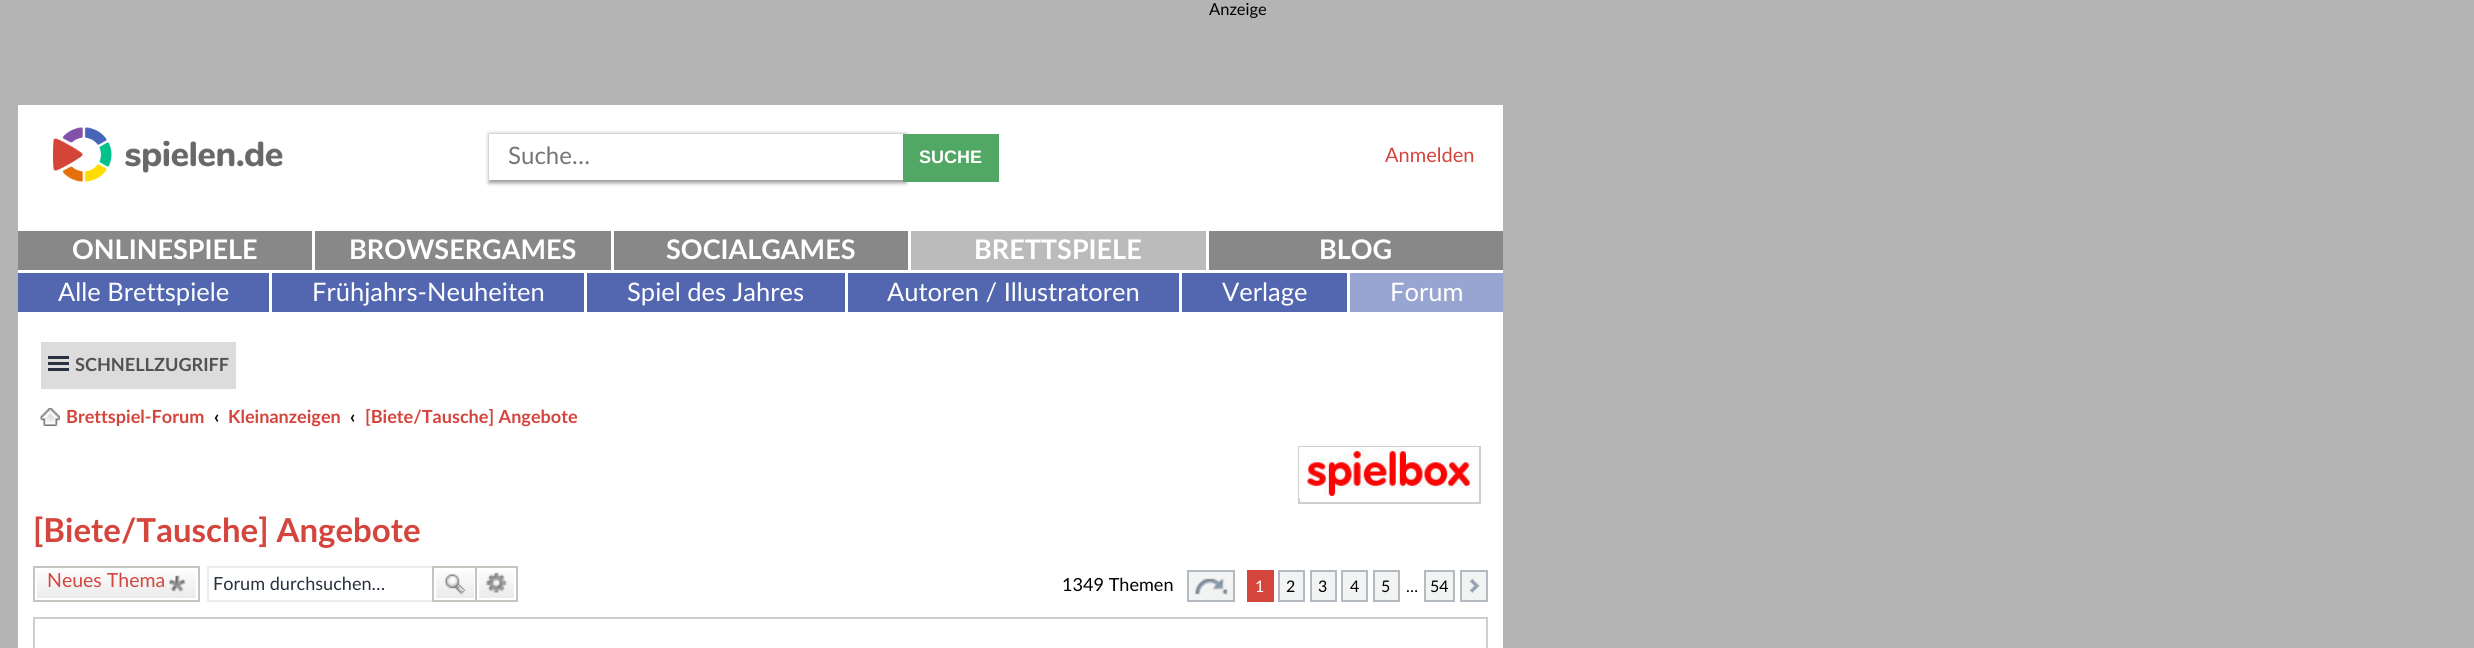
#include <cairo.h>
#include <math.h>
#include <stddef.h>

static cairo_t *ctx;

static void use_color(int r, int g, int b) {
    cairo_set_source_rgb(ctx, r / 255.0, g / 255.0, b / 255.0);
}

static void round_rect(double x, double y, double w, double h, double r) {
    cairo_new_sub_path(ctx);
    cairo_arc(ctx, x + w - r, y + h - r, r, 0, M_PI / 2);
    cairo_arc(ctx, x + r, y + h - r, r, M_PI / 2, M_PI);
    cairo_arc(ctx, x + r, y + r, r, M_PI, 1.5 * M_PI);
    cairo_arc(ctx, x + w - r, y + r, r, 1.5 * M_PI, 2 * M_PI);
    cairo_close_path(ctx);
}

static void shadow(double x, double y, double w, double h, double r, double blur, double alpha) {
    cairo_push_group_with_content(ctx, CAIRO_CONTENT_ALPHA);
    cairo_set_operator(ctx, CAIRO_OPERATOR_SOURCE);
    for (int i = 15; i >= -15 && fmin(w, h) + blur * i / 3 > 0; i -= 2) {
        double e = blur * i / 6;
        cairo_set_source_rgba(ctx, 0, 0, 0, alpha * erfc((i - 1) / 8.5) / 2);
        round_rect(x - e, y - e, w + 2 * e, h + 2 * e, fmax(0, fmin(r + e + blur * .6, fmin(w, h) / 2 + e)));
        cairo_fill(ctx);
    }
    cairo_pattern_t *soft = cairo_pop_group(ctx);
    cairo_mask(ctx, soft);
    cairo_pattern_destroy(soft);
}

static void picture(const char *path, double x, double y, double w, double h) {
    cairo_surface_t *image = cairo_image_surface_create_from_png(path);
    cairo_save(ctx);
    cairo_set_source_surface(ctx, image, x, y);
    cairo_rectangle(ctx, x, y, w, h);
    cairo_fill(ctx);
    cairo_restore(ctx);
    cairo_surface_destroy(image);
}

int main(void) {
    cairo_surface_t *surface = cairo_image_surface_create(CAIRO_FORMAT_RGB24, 2474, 648);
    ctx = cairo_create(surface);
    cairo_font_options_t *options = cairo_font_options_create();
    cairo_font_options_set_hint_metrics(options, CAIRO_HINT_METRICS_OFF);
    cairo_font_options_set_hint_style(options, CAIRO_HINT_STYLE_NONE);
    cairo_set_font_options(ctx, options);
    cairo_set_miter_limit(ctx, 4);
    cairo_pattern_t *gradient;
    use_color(180, 180, 180);
    cairo_paint(ctx);
    cairo_select_font_face(ctx, "Lato", CAIRO_FONT_SLANT_NORMAL, CAIRO_FONT_WEIGHT_NORMAL);
    cairo_set_font_size(ctx, 16.5);
    use_color(0, 0, 0);
    cairo_move_to(ctx, 1209, 15);
    cairo_show_text(ctx, "Anzeige");
    use_color(255, 255, 255);
    cairo_rectangle(ctx, 18, 105, 1485, 543);
    cairo_fill(ctx);
    picture("img1.png", 53, 127, 230, 55);
    cairo_save(ctx);
    cairo_set_fill_rule(ctx, CAIRO_FILL_RULE_EVEN_ODD);
    cairo_new_path(ctx);
    cairo_move_to(ctx, 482, 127);
    cairo_line_to(ctx, 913, 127);
    cairo_line_to(ctx, 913, 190);
    cairo_line_to(ctx, 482, 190);
    cairo_close_path(ctx);
    cairo_move_to(ctx, 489, 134);
    cairo_line_to(ctx, 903, 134);
    cairo_line_to(ctx, 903, 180);
    cairo_line_to(ctx, 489, 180);
    cairo_close_path(ctx);
    cairo_clip(ctx);
    use_color(153, 153, 153);
    shadow(489, 134, 417, 49, 0, 2, 1);
    cairo_restore(ctx);
    cairo_set_font_size(ctx, 24);
    use_color(117, 117, 117);
    cairo_move_to(ctx, 508, 164);
    cairo_show_text(ctx, "Suche…");
    use_color(81, 168, 101);
    cairo_rectangle(ctx, 903, 134, 96, 48);
    cairo_fill(ctx);
    cairo_select_font_face(ctx, "Liberation Sans", CAIRO_FONT_SLANT_NORMAL, CAIRO_FONT_WEIGHT_BOLD);
    cairo_set_font_size(ctx, 18);
    use_color(255, 255, 255);
    cairo_move_to(ctx, 919, 163);
    cairo_show_text(ctx, "SUCHE");
    cairo_select_font_face(ctx, "Lato", CAIRO_FONT_SLANT_NORMAL, CAIRO_FONT_WEIGHT_NORMAL);
    cairo_set_font_size(ctx, 20);
    use_color(212, 69, 61);
    cairo_move_to(ctx, 1385, 162);
    cairo_show_text(ctx, "Anmelden");
    use_color(136, 136, 136);
    cairo_rectangle(ctx, 18, 231, 1485, 39);
    cairo_fill(ctx);
    cairo_select_font_face(ctx, "Lato", CAIRO_FONT_SLANT_NORMAL, CAIRO_FONT_WEIGHT_BOLD);
    cairo_set_font_size(ctx, 27);
    use_color(255, 255, 255);
    cairo_move_to(ctx, 72, 259);
    cairo_show_text(ctx, "ONLINESPIELE");
    cairo_rectangle(ctx, 312, 231, 3, 39);
    cairo_fill(ctx);
    cairo_move_to(ctx, 349, 259);
    cairo_show_text(ctx, "BROWSERGAMES");
    cairo_rectangle(ctx, 611, 231, 3, 39);
    cairo_fill(ctx);
    cairo_move_to(ctx, 666, 259);
    cairo_show_text(ctx, "SOCIALGAMES");
    cairo_rectangle(ctx, 908, 231, 3, 39);
    cairo_fill(ctx);
    use_color(187, 187, 187);
    cairo_rectangle(ctx, 911, 231, 295, 39);
    cairo_fill(ctx);
    use_color(255, 255, 255);
    cairo_move_to(ctx, 974, 259);
    cairo_show_text(ctx, "BRETTSPIELE");
    cairo_rectangle(ctx, 1206, 231, 3, 39);
    cairo_fill(ctx);
    cairo_move_to(ctx, 1319, 259);
    cairo_show_text(ctx, "BLOG");
    use_color(83, 103, 177);
    cairo_rectangle(ctx, 18, 273, 1329, 39);
    cairo_fill(ctx);
    cairo_select_font_face(ctx, "Lato", CAIRO_FONT_SLANT_NORMAL, CAIRO_FONT_WEIGHT_NORMAL);
    cairo_set_font_size(ctx, 25.5);
    use_color(255, 255, 255);
    cairo_move_to(ctx, 58, 301);
    cairo_show_text(ctx, "Alle Brettspiele");
    cairo_rectangle(ctx, 269, 273, 3, 39);
    cairo_fill(ctx);
    cairo_move_to(ctx, 312, 301);
    cairo_show_text(ctx, "Frühjahrs-Neuheiten");
    cairo_rectangle(ctx, 584, 273, 3, 39);
    cairo_fill(ctx);
    cairo_move_to(ctx, 627, 301);
    cairo_show_text(ctx, "Spiel des Jahres");
    cairo_rectangle(ctx, 845, 273, 3, 39);
    cairo_fill(ctx);
    cairo_move_to(ctx, 887, 301);
    cairo_show_text(ctx, "Autoren / Illustratoren");
    cairo_rectangle(ctx, 1179, 273, 3, 39);
    cairo_fill(ctx);
    cairo_move_to(ctx, 1222, 301);
    cairo_show_text(ctx, "Verlage");
    use_color(153, 165, 209);
    cairo_rectangle(ctx, 1350, 273, 153, 39);
    cairo_fill(ctx);
    use_color(255, 255, 255);
    cairo_move_to(ctx, 1390, 301);
    cairo_show_text(ctx, "Forum");
    use_color(220, 220, 220);
    cairo_rectangle(ctx, 41, 342, 195, 47);
    cairo_fill(ctx);
    use_color(40, 49, 63);
    cairo_rectangle(ctx, 48, 356, 21, 3);
    cairo_fill(ctx);
    cairo_rectangle(ctx, 48, 362, 21, 3);
    cairo_fill(ctx);
    cairo_rectangle(ctx, 48, 368, 21, 3);
    cairo_fill(ctx);
    cairo_select_font_face(ctx, "Lato", CAIRO_FONT_SLANT_NORMAL, CAIRO_FONT_WEIGHT_BOLD);
    cairo_set_font_size(ctx, 18.1);
    use_color(82, 82, 82);
    cairo_move_to(ctx, 75, 371);
    cairo_show_text(ctx, "SCHNELLZUGRIFF");
    picture("img2.png", 40, 408, 20, 18);
    use_color(212, 69, 61);
    cairo_move_to(ctx, 66, 423);
    cairo_show_text(ctx, "Brettspiel-Forum");
    use_color(0, 0, 0);
    cairo_move_to(ctx, 214, 423);
    cairo_show_text(ctx, "‹");
    use_color(212, 69, 61);
    cairo_move_to(ctx, 228, 423);
    cairo_show_text(ctx, "Kleinanzeigen");
    use_color(0, 0, 0);
    cairo_move_to(ctx, 350, 423);
    cairo_show_text(ctx, "‹");
    use_color(212, 69, 61);
    cairo_move_to(ctx, 365, 423);
    cairo_show_text(ctx, "[Biete/Tausche] Angebote");
    cairo_rectangle(ctx, 1299, 447, 181, 56);
    use_color(206, 206, 206);
    cairo_stroke(ctx);
    picture("img3.png", 1299, 447, 180, 51);
    cairo_set_font_size(ctx, 33);
    use_color(212, 69, 61);
    cairo_move_to(ctx, 33, 542);
    cairo_show_text(ctx, "[Biete/Tausche] Angebote");
    gradient = cairo_pattern_create_linear(116, 567, 116, 600);
    cairo_pattern_add_color_stop_rgba(gradient, 0, 1, 1, 1, 1);
    cairo_pattern_add_color_stop_rgba(gradient, 1, 0.914, 0.914, 0.914, 1);
    cairo_set_source(ctx, gradient);
    cairo_pattern_destroy(gradient);
    cairo_rectangle(ctx, 37, 571, 159, 27);
    cairo_fill(ctx);
    cairo_rectangle(ctx, 34, 567, 165, 34);
    use_color(199, 195, 191);
    cairo_stroke(ctx);
    cairo_select_font_face(ctx, "Lato", CAIRO_FONT_SLANT_NORMAL, CAIRO_FONT_WEIGHT_NORMAL);
    cairo_set_font_size(ctx, 19.5);
    use_color(212, 69, 61);
    cairo_move_to(ctx, 47, 587);
    cairo_show_text(ctx, "Neues Thema");
    picture("img4.png", 169, 575, 17, 18);
    use_color(237, 237, 237);
    cairo_rectangle(ctx, 207, 566, 225, 2);
    cairo_fill(ctx);
    cairo_rectangle(ctx, 207, 600, 225, 2);
    cairo_fill(ctx);
    cairo_rectangle(ctx, 207, 566, 2, 36);
    cairo_fill(ctx);
    cairo_set_font_size(ctx, 18.1);
    use_color(40, 49, 63);
    cairo_move_to(ctx, 213, 590);
    cairo_show_text(ctx, "Forum durchsuchen…");
    gradient = cairo_pattern_create_linear(455, 567, 455, 600);
    cairo_pattern_add_color_stop_rgba(gradient, 0, 1, 1, 1, 1);
    cairo_pattern_add_color_stop_rgba(gradient, 1, 0.914, 0.914, 0.914, 1);
    cairo_set_source(ctx, gradient);
    cairo_pattern_destroy(gradient);
    cairo_rectangle(ctx, 436, 571, 38, 27);
    cairo_fill(ctx);
    cairo_rectangle(ctx, 433, 567, 43, 34);
    use_color(199, 195, 191);
    cairo_stroke(ctx);
    picture("img5.png", 445, 574, 21, 21);
    gradient = cairo_pattern_create_linear(497, 567, 497, 600);
    cairo_pattern_add_color_stop_rgba(gradient, 0, 1, 1, 1, 1);
    cairo_pattern_add_color_stop_rgba(gradient, 1, 0.914, 0.914, 0.914, 1);
    cairo_set_source(ctx, gradient);
    cairo_pattern_destroy(gradient);
    cairo_rectangle(ctx, 479, 571, 35, 27);
    cairo_fill(ctx);
    use_color(199, 195, 191);
    cairo_rectangle(ctx, 477, 566, 41, 2);
    cairo_fill(ctx);
    cairo_rectangle(ctx, 516, 566, 2, 36);
    cairo_fill(ctx);
    cairo_rectangle(ctx, 477, 600, 41, 2);
    cairo_fill(ctx);
    picture("img6.png", 485, 573, 23, 20);
    use_color(0, 0, 0);
    cairo_move_to(ctx, 1062, 591);
    cairo_show_text(ctx, "1349 Themen");
    use_color(242, 243, 243);
    cairo_rectangle(ctx, 1189, 572, 44, 28);
    cairo_fill(ctx);
    picture("img7.png", 1195, 578, 33, 17);
    cairo_rectangle(ctx, 1188, 571, 46, 30);
    use_color(180, 186, 192);
    cairo_stroke(ctx);
    use_color(212, 69, 61);
    cairo_rectangle(ctx, 1247, 570, 27, 32);
    cairo_fill(ctx);
    cairo_set_font_size(ctx, 16);
    use_color(255, 255, 255);
    cairo_move_to(ctx, 1255, 592);
    cairo_show_text(ctx, "1");
    use_color(242, 243, 243);
    cairo_rectangle(ctx, 1279, 571, 25, 30);
    cairo_fill_preserve(ctx);
    use_color(180, 186, 192);
    cairo_stroke(ctx);
    use_color(0, 0, 0);
    cairo_move_to(ctx, 1286, 592);
    cairo_show_text(ctx, "2");
    use_color(242, 243, 243);
    cairo_rectangle(ctx, 1311, 571, 25, 30);
    cairo_fill_preserve(ctx);
    use_color(180, 186, 192);
    cairo_stroke(ctx);
    use_color(0, 0, 0);
    cairo_move_to(ctx, 1318, 592);
    cairo_show_text(ctx, "3");
    use_color(242, 243, 243);
    cairo_rectangle(ctx, 1342, 571, 25, 30);
    cairo_fill_preserve(ctx);
    use_color(180, 186, 192);
    cairo_stroke(ctx);
    use_color(0, 0, 0);
    cairo_move_to(ctx, 1350, 592);
    cairo_show_text(ctx, "4");
    use_color(242, 243, 243);
    cairo_rectangle(ctx, 1374, 571, 25, 30);
    cairo_fill_preserve(ctx);
    use_color(180, 186, 192);
    cairo_stroke(ctx);
    use_color(0, 0, 0);
    cairo_move_to(ctx, 1381, 592);
    cairo_show_text(ctx, "5");
    cairo_move_to(ctx, 1406, 592);
    cairo_show_text(ctx, "…");
    use_color(242, 243, 243);
    cairo_rectangle(ctx, 1425, 571, 29, 30);
    cairo_fill_preserve(ctx);
    use_color(180, 186, 192);
    cairo_stroke(ctx);
    use_color(0, 0, 0);
    cairo_move_to(ctx, 1430, 592);
    cairo_show_text(ctx, "54");
    use_color(242, 243, 243);
    cairo_rectangle(ctx, 1462, 572, 24, 28);
    cairo_fill(ctx);
    picture("img8.png", 1469, 578, 11, 15);
    cairo_rectangle(ctx, 1461, 571, 26, 30);
    use_color(180, 186, 192);
    cairo_stroke(ctx);
    cairo_rectangle(ctx, 34, 618, 1453, 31);
    use_color(206, 206, 206);
    cairo_stroke(ctx);
    cairo_surface_write_to_png(surface, "result.png");
    cairo_font_options_destroy(options);
    cairo_destroy(ctx);
    cairo_surface_destroy(surface);
    return 0;
}
